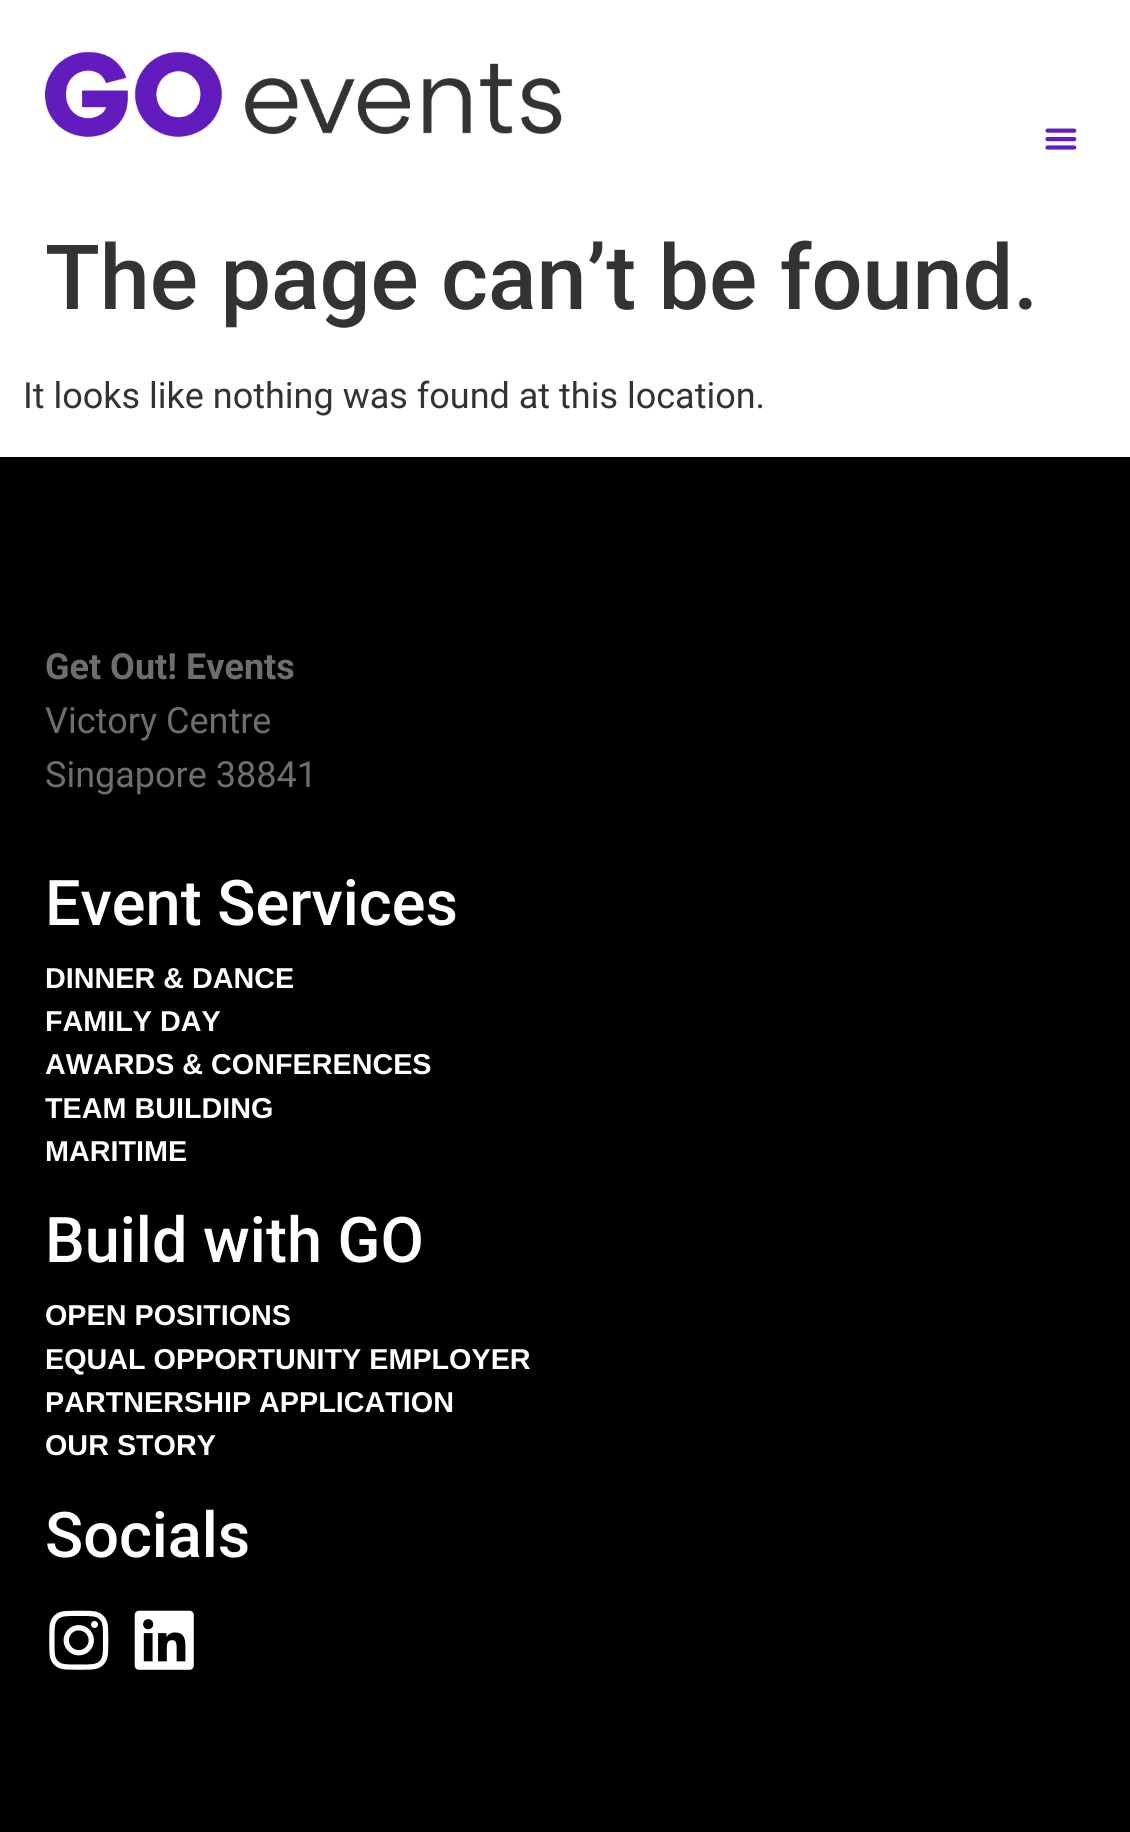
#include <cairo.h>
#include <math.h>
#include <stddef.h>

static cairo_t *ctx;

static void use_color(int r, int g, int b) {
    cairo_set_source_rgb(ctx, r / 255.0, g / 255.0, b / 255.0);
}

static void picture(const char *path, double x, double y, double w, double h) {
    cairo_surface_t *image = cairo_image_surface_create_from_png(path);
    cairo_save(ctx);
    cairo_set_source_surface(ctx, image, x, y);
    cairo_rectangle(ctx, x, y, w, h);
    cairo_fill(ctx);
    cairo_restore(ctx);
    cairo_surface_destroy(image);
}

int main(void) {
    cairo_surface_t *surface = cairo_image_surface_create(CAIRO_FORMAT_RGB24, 1130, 1832);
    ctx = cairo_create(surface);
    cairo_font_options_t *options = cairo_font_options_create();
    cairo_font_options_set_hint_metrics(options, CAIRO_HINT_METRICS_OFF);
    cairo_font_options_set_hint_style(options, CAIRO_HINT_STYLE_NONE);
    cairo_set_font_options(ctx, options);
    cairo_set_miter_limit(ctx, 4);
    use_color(255, 255, 255);
    cairo_paint(ctx);
    picture("img1.png", 45, 51, 517, 86);
    picture("img2.png", 1045, 128, 32, 22);
    cairo_select_font_face(ctx, "Roboto Medium", CAIRO_FONT_SLANT_NORMAL, CAIRO_FONT_WEIGHT_NORMAL);
    cairo_set_font_size(ctx, 90);
    use_color(51, 51, 51);
    cairo_move_to(ctx, 45, 309);
    cairo_show_text(ctx, "The page can’t be found.");
    cairo_select_font_face(ctx, "Roboto", CAIRO_FONT_SLANT_NORMAL, CAIRO_FONT_WEIGHT_NORMAL);
    cairo_set_font_size(ctx, 36);
    cairo_move_to(ctx, 23, 408);
    cairo_show_text(ctx, "It looks like nothing was found at this location.");
    use_color(0, 0, 0);
    cairo_rectangle(ctx, 0, 457, 1130, 1375);
    cairo_fill(ctx);
    cairo_select_font_face(ctx, "Roboto", CAIRO_FONT_SLANT_NORMAL, CAIRO_FONT_WEIGHT_BOLD);
    use_color(110, 110, 110);
    cairo_move_to(ctx, 45, 679);
    cairo_show_text(ctx, "Get Out! Events");
    cairo_select_font_face(ctx, "Roboto", CAIRO_FONT_SLANT_NORMAL, CAIRO_FONT_WEIGHT_NORMAL);
    cairo_move_to(ctx, 45, 733);
    cairo_show_text(ctx, "Victory Centre");
    cairo_move_to(ctx, 45, 787);
    cairo_show_text(ctx, "Singapore 38841");
    cairo_select_font_face(ctx, "Roboto Medium", CAIRO_FONT_SLANT_NORMAL, CAIRO_FONT_WEIGHT_NORMAL);
    cairo_set_font_size(ctx, 63);
    use_color(255, 255, 255);
    cairo_move_to(ctx, 45, 925);
    cairo_show_text(ctx, "Event Services");
    cairo_select_font_face(ctx, "Liberation Sans", CAIRO_FONT_SLANT_NORMAL, CAIRO_FONT_WEIGHT_BOLD);
    cairo_set_font_size(ctx, 28.75);
    cairo_move_to(ctx, 45, 988);
    cairo_show_text(ctx, "DINNER & DANCE");
    cairo_move_to(ctx, 45, 1031);
    cairo_show_text(ctx, "FAMILY DAY");
    cairo_move_to(ctx, 45, 1074);
    cairo_show_text(ctx, "AWARDS & CONFERENCES");
    cairo_move_to(ctx, 45, 1118);
    cairo_show_text(ctx, "TEAM BUILDING");
    cairo_move_to(ctx, 45, 1161);
    cairo_show_text(ctx, "MARITIME");
    cairo_select_font_face(ctx, "Roboto Medium", CAIRO_FONT_SLANT_NORMAL, CAIRO_FONT_WEIGHT_NORMAL);
    cairo_set_font_size(ctx, 63);
    cairo_move_to(ctx, 45, 1262);
    cairo_show_text(ctx, "Build with GO");
    cairo_select_font_face(ctx, "Liberation Sans", CAIRO_FONT_SLANT_NORMAL, CAIRO_FONT_WEIGHT_BOLD);
    cairo_set_font_size(ctx, 28.75);
    cairo_move_to(ctx, 45, 1325);
    cairo_show_text(ctx, "OPEN POSITIONS");
    cairo_move_to(ctx, 45, 1369);
    cairo_show_text(ctx, "EQUAL OPPORTUNITY EMPLOYER");
    cairo_move_to(ctx, 45, 1412);
    cairo_show_text(ctx, "PARTNERSHIP APPLICATION");
    cairo_move_to(ctx, 45, 1455);
    cairo_show_text(ctx, "OUR STORY");
    cairo_select_font_face(ctx, "Roboto Medium", CAIRO_FONT_SLANT_NORMAL, CAIRO_FONT_WEIGHT_NORMAL);
    cairo_set_font_size(ctx, 63);
    cairo_move_to(ctx, 45, 1557);
    cairo_show_text(ctx, "Socials");
    picture("img3.png", 49, 1610, 60, 60);
    picture("img4.png", 134, 1610, 60, 60);
    cairo_surface_write_to_png(surface, "result.png");
    cairo_font_options_destroy(options);
    cairo_destroy(ctx);
    cairo_surface_destroy(surface);
    return 0;
}
